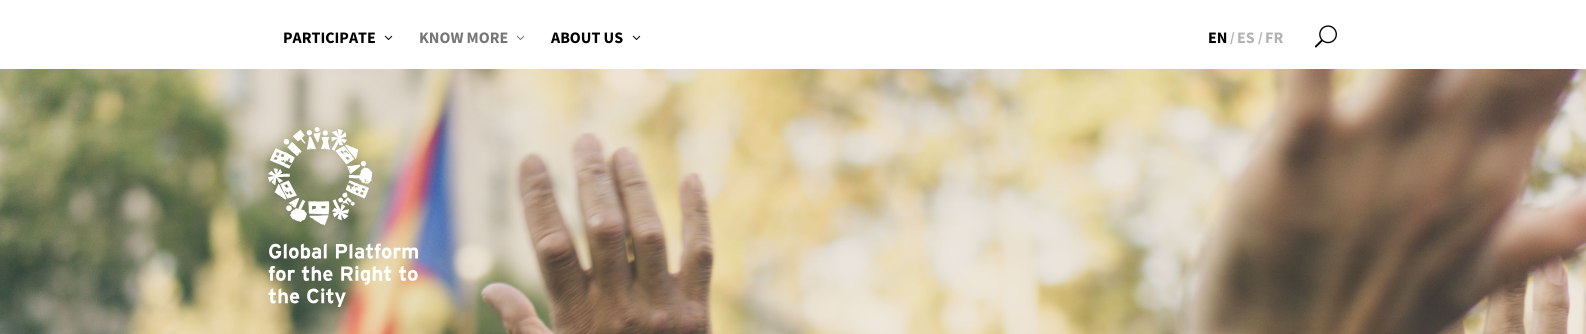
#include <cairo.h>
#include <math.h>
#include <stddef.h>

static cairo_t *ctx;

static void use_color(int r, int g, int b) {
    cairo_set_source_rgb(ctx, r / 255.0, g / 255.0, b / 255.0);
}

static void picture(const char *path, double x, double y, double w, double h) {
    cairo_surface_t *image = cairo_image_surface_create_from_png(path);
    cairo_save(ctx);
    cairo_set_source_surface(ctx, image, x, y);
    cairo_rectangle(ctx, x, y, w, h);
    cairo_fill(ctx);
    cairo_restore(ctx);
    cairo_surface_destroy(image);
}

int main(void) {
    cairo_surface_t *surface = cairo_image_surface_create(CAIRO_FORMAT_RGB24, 1586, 334);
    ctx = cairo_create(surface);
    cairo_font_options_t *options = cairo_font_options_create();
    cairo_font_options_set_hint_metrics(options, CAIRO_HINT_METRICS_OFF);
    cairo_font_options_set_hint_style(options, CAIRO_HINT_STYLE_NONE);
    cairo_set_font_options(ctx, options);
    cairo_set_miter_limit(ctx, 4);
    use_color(255, 255, 255);
    cairo_paint(ctx);
    cairo_select_font_face(ctx, "Source Sans Pro", CAIRO_FONT_SLANT_NORMAL, CAIRO_FONT_WEIGHT_BOLD);
    cairo_set_font_size(ctx, 16);
    use_color(0, 0, 0);
    cairo_move_to(ctx, 283, 43);
    cairo_show_text(ctx, "PARTICIPATE");
    picture("img1.png", 384, 35, 9, 5);
    use_color(118, 118, 118);
    cairo_move_to(ctx, 419, 43);
    cairo_show_text(ctx, "KNOW MORE");
    picture("img2.png", 516, 35, 9, 5);
    use_color(0, 0, 0);
    cairo_move_to(ctx, 551, 43);
    cairo_show_text(ctx, "ABOUT US");
    picture("img1.png", 632, 35, 9, 5);
    cairo_move_to(ctx, 1208, 43);
    cairo_show_text(ctx, "EN");
    cairo_set_font_size(ctx, 14);
    use_color(179, 179, 179);
    cairo_move_to(ctx, 1230, 42);
    cairo_show_text(ctx, "/");
    cairo_set_font_size(ctx, 16);
    cairo_move_to(ctx, 1237, 43);
    cairo_show_text(ctx, "ES");
    cairo_set_font_size(ctx, 14);
    cairo_move_to(ctx, 1258, 42);
    cairo_show_text(ctx, "/");
    cairo_set_font_size(ctx, 16);
    cairo_move_to(ctx, 1265, 43);
    cairo_show_text(ctx, "FR");
    picture("img3.png", 1314, 25, 23, 23);
    picture("img4.png", 0, 69, 1586, 265);
    picture("img5.png", 268, 127, 150, 180);
    cairo_surface_write_to_png(surface, "result.png");
    cairo_font_options_destroy(options);
    cairo_destroy(ctx);
    cairo_surface_destroy(surface);
    return 0;
}
